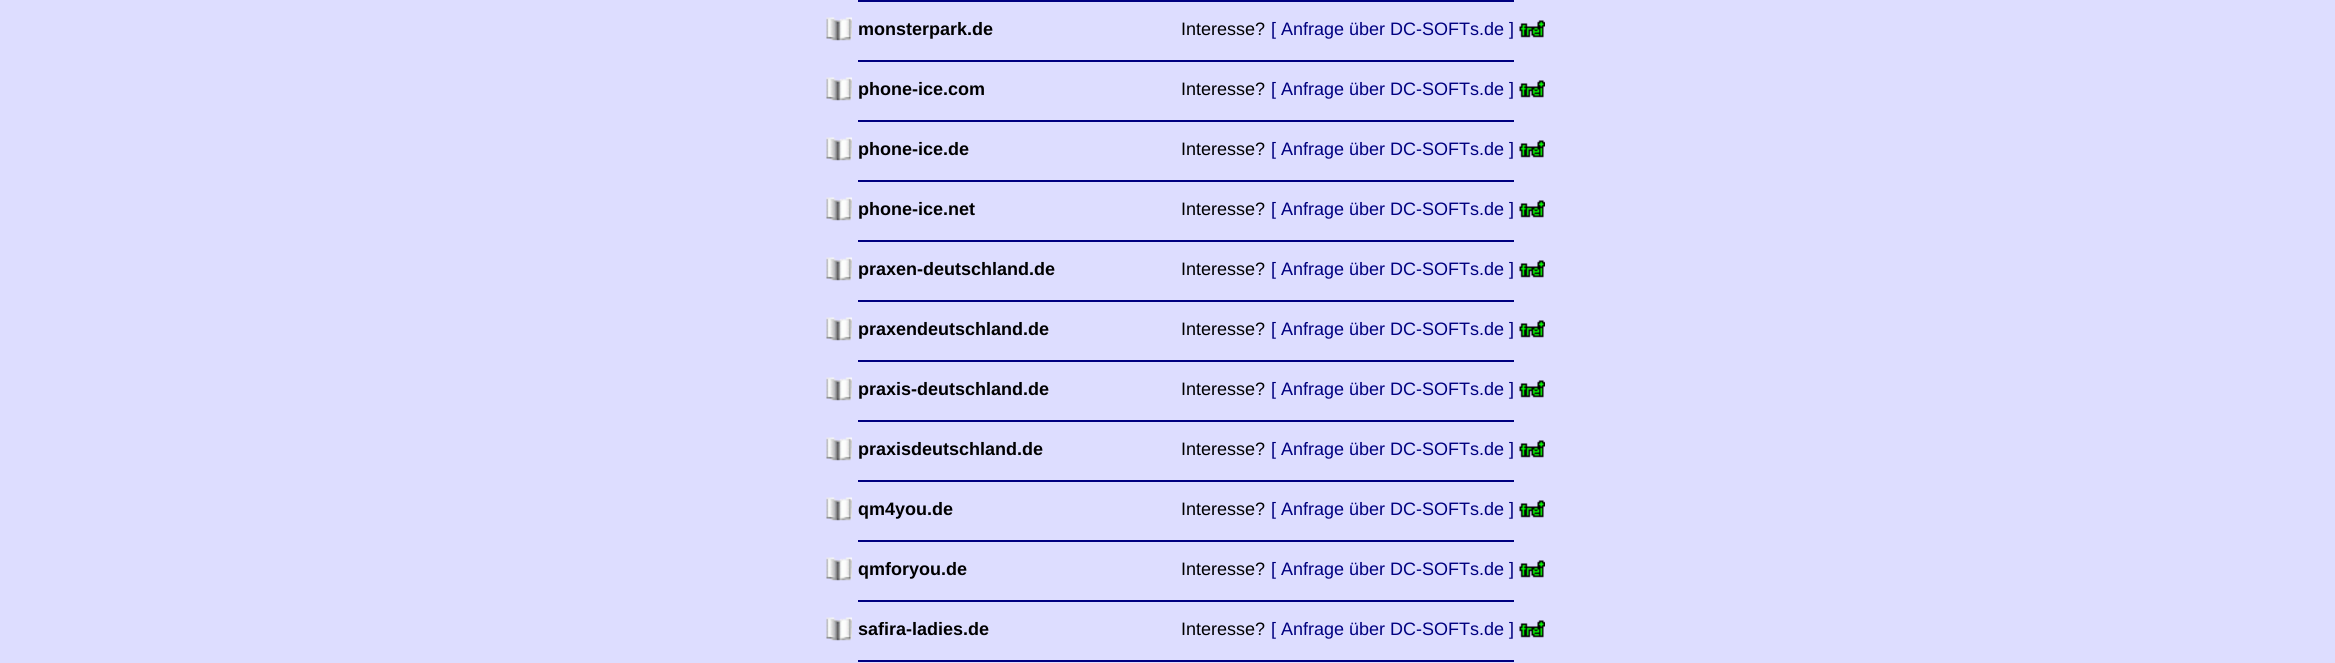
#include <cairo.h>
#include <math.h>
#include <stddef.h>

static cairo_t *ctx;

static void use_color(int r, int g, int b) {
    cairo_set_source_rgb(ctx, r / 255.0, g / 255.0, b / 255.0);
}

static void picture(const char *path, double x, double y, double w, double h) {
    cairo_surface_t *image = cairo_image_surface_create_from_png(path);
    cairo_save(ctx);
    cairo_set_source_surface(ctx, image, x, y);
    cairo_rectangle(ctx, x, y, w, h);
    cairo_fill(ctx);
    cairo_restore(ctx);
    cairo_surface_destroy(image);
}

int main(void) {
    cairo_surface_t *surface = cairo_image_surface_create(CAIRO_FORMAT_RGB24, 2335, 663);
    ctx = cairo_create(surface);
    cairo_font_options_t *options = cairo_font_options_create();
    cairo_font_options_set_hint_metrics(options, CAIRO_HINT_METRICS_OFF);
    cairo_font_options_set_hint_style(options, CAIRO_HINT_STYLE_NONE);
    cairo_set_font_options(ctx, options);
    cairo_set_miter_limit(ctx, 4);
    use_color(221, 221, 255);
    cairo_paint(ctx);
    use_color(0, 0, 128);
    cairo_rectangle(ctx, 858, 0, 656, 2);
    cairo_fill(ctx);
    picture("img1.png", 826, 17, 26, 24);
    cairo_select_font_face(ctx, "Liberation Sans", CAIRO_FONT_SLANT_NORMAL, CAIRO_FONT_WEIGHT_BOLD);
    cairo_set_font_size(ctx, 18);
    use_color(0, 0, 0);
    cairo_move_to(ctx, 858, 35);
    cairo_show_text(ctx, "monsterpark.de");
    cairo_select_font_face(ctx, "Liberation Sans", CAIRO_FONT_SLANT_NORMAL, CAIRO_FONT_WEIGHT_NORMAL);
    cairo_move_to(ctx, 1181, 35);
    cairo_show_text(ctx, "Interesse?");
    use_color(0, 0, 128);
    cairo_move_to(ctx, 1271, 35);
    cairo_show_text(ctx, "[ Anfrage über DC-SOFTs.de ]");
    picture("img2.png", 1519, 20, 26, 18);
    cairo_rectangle(ctx, 858, 60, 656, 2);
    cairo_fill(ctx);
    picture("img1.png", 826, 77, 26, 24);
    cairo_select_font_face(ctx, "Liberation Sans", CAIRO_FONT_SLANT_NORMAL, CAIRO_FONT_WEIGHT_BOLD);
    use_color(0, 0, 0);
    cairo_move_to(ctx, 858, 95);
    cairo_show_text(ctx, "phone-ice.com");
    cairo_select_font_face(ctx, "Liberation Sans", CAIRO_FONT_SLANT_NORMAL, CAIRO_FONT_WEIGHT_NORMAL);
    cairo_move_to(ctx, 1181, 95);
    cairo_show_text(ctx, "Interesse?");
    use_color(0, 0, 128);
    cairo_move_to(ctx, 1271, 95);
    cairo_show_text(ctx, "[ Anfrage über DC-SOFTs.de ]");
    picture("img2.png", 1519, 80, 26, 18);
    cairo_rectangle(ctx, 858, 120, 656, 2);
    cairo_fill(ctx);
    picture("img1.png", 826, 137, 26, 24);
    cairo_select_font_face(ctx, "Liberation Sans", CAIRO_FONT_SLANT_NORMAL, CAIRO_FONT_WEIGHT_BOLD);
    use_color(0, 0, 0);
    cairo_move_to(ctx, 858, 155);
    cairo_show_text(ctx, "phone-ice.de");
    cairo_select_font_face(ctx, "Liberation Sans", CAIRO_FONT_SLANT_NORMAL, CAIRO_FONT_WEIGHT_NORMAL);
    cairo_move_to(ctx, 1181, 155);
    cairo_show_text(ctx, "Interesse?");
    use_color(0, 0, 128);
    cairo_move_to(ctx, 1271, 155);
    cairo_show_text(ctx, "[ Anfrage über DC-SOFTs.de ]");
    picture("img2.png", 1519, 140, 26, 18);
    cairo_rectangle(ctx, 858, 180, 656, 2);
    cairo_fill(ctx);
    picture("img1.png", 826, 197, 26, 24);
    cairo_select_font_face(ctx, "Liberation Sans", CAIRO_FONT_SLANT_NORMAL, CAIRO_FONT_WEIGHT_BOLD);
    use_color(0, 0, 0);
    cairo_move_to(ctx, 858, 215);
    cairo_show_text(ctx, "phone-ice.net");
    cairo_select_font_face(ctx, "Liberation Sans", CAIRO_FONT_SLANT_NORMAL, CAIRO_FONT_WEIGHT_NORMAL);
    cairo_move_to(ctx, 1181, 215);
    cairo_show_text(ctx, "Interesse?");
    use_color(0, 0, 128);
    cairo_move_to(ctx, 1271, 215);
    cairo_show_text(ctx, "[ Anfrage über DC-SOFTs.de ]");
    picture("img2.png", 1519, 200, 26, 18);
    cairo_rectangle(ctx, 858, 240, 656, 2);
    cairo_fill(ctx);
    picture("img1.png", 826, 257, 26, 24);
    cairo_select_font_face(ctx, "Liberation Sans", CAIRO_FONT_SLANT_NORMAL, CAIRO_FONT_WEIGHT_BOLD);
    use_color(0, 0, 0);
    cairo_move_to(ctx, 858, 275);
    cairo_show_text(ctx, "praxen-deutschland.de");
    cairo_select_font_face(ctx, "Liberation Sans", CAIRO_FONT_SLANT_NORMAL, CAIRO_FONT_WEIGHT_NORMAL);
    cairo_move_to(ctx, 1181, 275);
    cairo_show_text(ctx, "Interesse?");
    use_color(0, 0, 128);
    cairo_move_to(ctx, 1271, 275);
    cairo_show_text(ctx, "[ Anfrage über DC-SOFTs.de ]");
    picture("img2.png", 1519, 260, 26, 18);
    cairo_rectangle(ctx, 858, 300, 656, 2);
    cairo_fill(ctx);
    picture("img1.png", 826, 317, 26, 24);
    cairo_select_font_face(ctx, "Liberation Sans", CAIRO_FONT_SLANT_NORMAL, CAIRO_FONT_WEIGHT_BOLD);
    use_color(0, 0, 0);
    cairo_move_to(ctx, 858, 335);
    cairo_show_text(ctx, "praxendeutschland.de");
    cairo_select_font_face(ctx, "Liberation Sans", CAIRO_FONT_SLANT_NORMAL, CAIRO_FONT_WEIGHT_NORMAL);
    cairo_move_to(ctx, 1181, 335);
    cairo_show_text(ctx, "Interesse?");
    use_color(0, 0, 128);
    cairo_move_to(ctx, 1271, 335);
    cairo_show_text(ctx, "[ Anfrage über DC-SOFTs.de ]");
    picture("img2.png", 1519, 320, 26, 18);
    cairo_rectangle(ctx, 858, 360, 656, 2);
    cairo_fill(ctx);
    picture("img1.png", 826, 377, 26, 24);
    cairo_select_font_face(ctx, "Liberation Sans", CAIRO_FONT_SLANT_NORMAL, CAIRO_FONT_WEIGHT_BOLD);
    use_color(0, 0, 0);
    cairo_move_to(ctx, 858, 395);
    cairo_show_text(ctx, "praxis-deutschland.de");
    cairo_select_font_face(ctx, "Liberation Sans", CAIRO_FONT_SLANT_NORMAL, CAIRO_FONT_WEIGHT_NORMAL);
    cairo_move_to(ctx, 1181, 395);
    cairo_show_text(ctx, "Interesse?");
    use_color(0, 0, 128);
    cairo_move_to(ctx, 1271, 395);
    cairo_show_text(ctx, "[ Anfrage über DC-SOFTs.de ]");
    picture("img2.png", 1519, 380, 26, 18);
    cairo_rectangle(ctx, 858, 420, 656, 2);
    cairo_fill(ctx);
    picture("img1.png", 826, 437, 26, 24);
    cairo_select_font_face(ctx, "Liberation Sans", CAIRO_FONT_SLANT_NORMAL, CAIRO_FONT_WEIGHT_BOLD);
    use_color(0, 0, 0);
    cairo_move_to(ctx, 858, 455);
    cairo_show_text(ctx, "praxisdeutschland.de");
    cairo_select_font_face(ctx, "Liberation Sans", CAIRO_FONT_SLANT_NORMAL, CAIRO_FONT_WEIGHT_NORMAL);
    cairo_move_to(ctx, 1181, 455);
    cairo_show_text(ctx, "Interesse?");
    use_color(0, 0, 128);
    cairo_move_to(ctx, 1271, 455);
    cairo_show_text(ctx, "[ Anfrage über DC-SOFTs.de ]");
    picture("img2.png", 1519, 440, 26, 18);
    cairo_rectangle(ctx, 858, 480, 656, 2);
    cairo_fill(ctx);
    picture("img1.png", 826, 497, 26, 24);
    cairo_select_font_face(ctx, "Liberation Sans", CAIRO_FONT_SLANT_NORMAL, CAIRO_FONT_WEIGHT_BOLD);
    use_color(0, 0, 0);
    cairo_move_to(ctx, 858, 515);
    cairo_show_text(ctx, "qm4you.de");
    cairo_select_font_face(ctx, "Liberation Sans", CAIRO_FONT_SLANT_NORMAL, CAIRO_FONT_WEIGHT_NORMAL);
    cairo_move_to(ctx, 1181, 515);
    cairo_show_text(ctx, "Interesse?");
    use_color(0, 0, 128);
    cairo_move_to(ctx, 1271, 515);
    cairo_show_text(ctx, "[ Anfrage über DC-SOFTs.de ]");
    picture("img2.png", 1519, 500, 26, 18);
    cairo_rectangle(ctx, 858, 540, 656, 2);
    cairo_fill(ctx);
    picture("img1.png", 826, 557, 26, 24);
    cairo_select_font_face(ctx, "Liberation Sans", CAIRO_FONT_SLANT_NORMAL, CAIRO_FONT_WEIGHT_BOLD);
    use_color(0, 0, 0);
    cairo_move_to(ctx, 858, 575);
    cairo_show_text(ctx, "qmforyou.de");
    cairo_select_font_face(ctx, "Liberation Sans", CAIRO_FONT_SLANT_NORMAL, CAIRO_FONT_WEIGHT_NORMAL);
    cairo_move_to(ctx, 1181, 575);
    cairo_show_text(ctx, "Interesse?");
    use_color(0, 0, 128);
    cairo_move_to(ctx, 1271, 575);
    cairo_show_text(ctx, "[ Anfrage über DC-SOFTs.de ]");
    picture("img2.png", 1519, 560, 26, 18);
    cairo_rectangle(ctx, 858, 600, 656, 2);
    cairo_fill(ctx);
    picture("img1.png", 826, 617, 26, 24);
    cairo_select_font_face(ctx, "Liberation Sans", CAIRO_FONT_SLANT_NORMAL, CAIRO_FONT_WEIGHT_BOLD);
    use_color(0, 0, 0);
    cairo_move_to(ctx, 858, 635);
    cairo_show_text(ctx, "safira-ladies.de");
    cairo_select_font_face(ctx, "Liberation Sans", CAIRO_FONT_SLANT_NORMAL, CAIRO_FONT_WEIGHT_NORMAL);
    cairo_move_to(ctx, 1181, 635);
    cairo_show_text(ctx, "Interesse?");
    use_color(0, 0, 128);
    cairo_move_to(ctx, 1271, 635);
    cairo_show_text(ctx, "[ Anfrage über DC-SOFTs.de ]");
    picture("img2.png", 1519, 620, 26, 18);
    cairo_rectangle(ctx, 858, 660, 656, 2);
    cairo_fill(ctx);
    cairo_surface_write_to_png(surface, "result.png");
    cairo_font_options_destroy(options);
    cairo_destroy(ctx);
    cairo_surface_destroy(surface);
    return 0;
}
